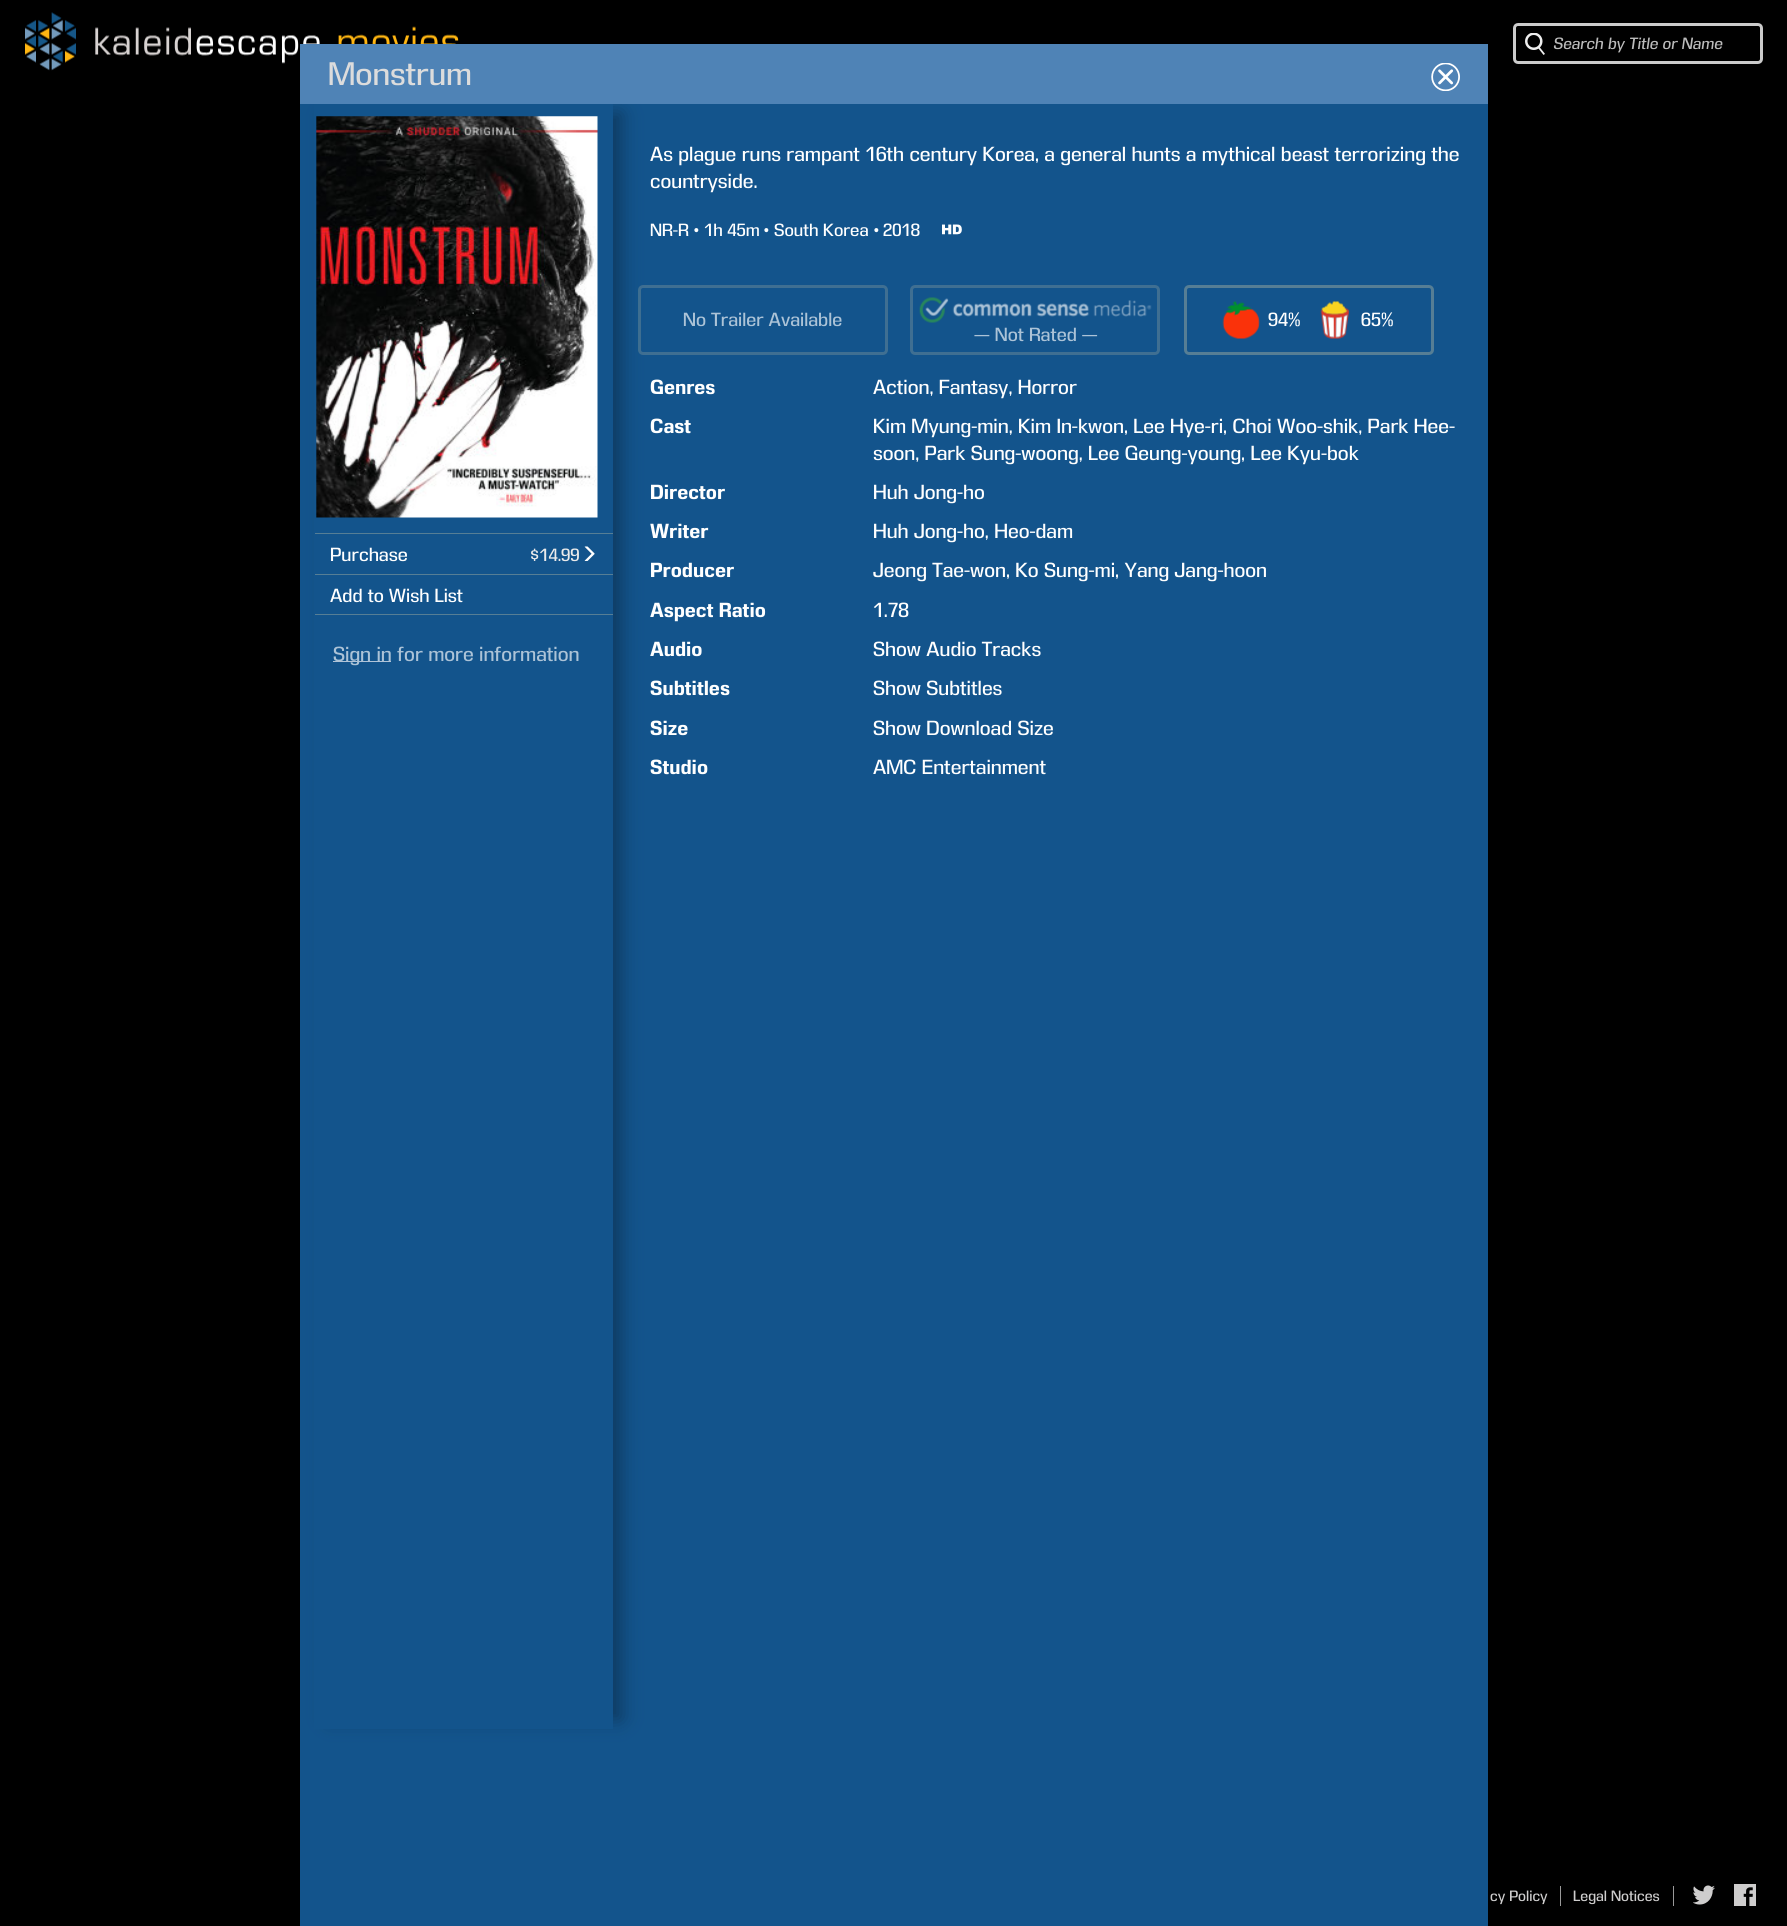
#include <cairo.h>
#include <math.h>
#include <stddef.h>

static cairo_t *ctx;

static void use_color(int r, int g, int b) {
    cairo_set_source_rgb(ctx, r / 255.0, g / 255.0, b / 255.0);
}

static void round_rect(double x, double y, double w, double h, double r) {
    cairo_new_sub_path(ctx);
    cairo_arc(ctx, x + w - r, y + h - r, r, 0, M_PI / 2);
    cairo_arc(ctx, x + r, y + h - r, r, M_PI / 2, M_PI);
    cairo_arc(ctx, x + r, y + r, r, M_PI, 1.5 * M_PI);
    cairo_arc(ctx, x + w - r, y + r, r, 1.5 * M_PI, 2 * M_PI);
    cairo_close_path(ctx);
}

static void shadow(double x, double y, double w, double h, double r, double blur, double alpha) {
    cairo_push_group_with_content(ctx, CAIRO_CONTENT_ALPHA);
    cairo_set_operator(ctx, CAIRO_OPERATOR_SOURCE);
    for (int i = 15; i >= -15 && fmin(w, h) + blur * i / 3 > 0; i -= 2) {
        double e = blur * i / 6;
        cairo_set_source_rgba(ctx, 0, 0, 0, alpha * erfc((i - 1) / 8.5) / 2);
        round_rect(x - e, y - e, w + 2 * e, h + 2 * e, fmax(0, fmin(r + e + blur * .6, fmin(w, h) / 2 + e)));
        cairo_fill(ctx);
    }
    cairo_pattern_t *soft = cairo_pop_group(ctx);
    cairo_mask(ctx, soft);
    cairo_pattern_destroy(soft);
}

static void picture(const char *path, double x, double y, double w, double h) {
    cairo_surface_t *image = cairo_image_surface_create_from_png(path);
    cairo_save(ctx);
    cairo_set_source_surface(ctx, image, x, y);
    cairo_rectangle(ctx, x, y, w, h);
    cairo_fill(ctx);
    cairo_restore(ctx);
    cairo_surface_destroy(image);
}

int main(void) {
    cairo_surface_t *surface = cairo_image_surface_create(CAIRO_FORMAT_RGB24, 1787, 1926);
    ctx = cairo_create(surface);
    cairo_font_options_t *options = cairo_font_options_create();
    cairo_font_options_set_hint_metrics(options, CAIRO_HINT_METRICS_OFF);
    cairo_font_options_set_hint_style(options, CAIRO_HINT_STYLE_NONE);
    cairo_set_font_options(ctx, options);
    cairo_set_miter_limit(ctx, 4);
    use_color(0, 0, 0);
    cairo_paint(ctx);
    use_color(19, 84, 140);
    cairo_rectangle(ctx, 300, 104, 1188, 1822);
    cairo_fill(ctx);
    round_rect(639.5, 286.5, 247, 67, 3.5);
    use_color(63, 111, 146);
    cairo_set_line_width(ctx, 3);
    cairo_stroke(ctx);
    use_color(13, 57, 95);
    shadow(329, 114, 292, 1605, 0, 9.5, 1);
    picture("img8.png", 25, 12, 434, 59);
    use_color(79, 131, 182);
    cairo_rectangle(ctx, 300, 44, 1188, 60);
    cairo_fill(ctx);
    cairo_select_font_face(ctx, "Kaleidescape", CAIRO_FONT_SLANT_NORMAL, CAIRO_FONT_WEIGHT_NORMAL);
    cairo_set_font_size(ctx, 30);
    use_color(220, 220, 220);
    cairo_move_to(ctx, 328, 85);
    cairo_show_text(ctx, "Monstrum");
    picture("img1.png", 1431, 63, 29, 28);
    use_color(19, 84, 140);
    cairo_rectangle(ctx, 314, 104, 299, 1625);
    cairo_fill(ctx);
    picture("img2.png", 316, 116, 282, 402);
    use_color(86, 126, 149);
    cairo_rectangle(ctx, 315, 533, 298, 1);
    cairo_fill(ctx);
    cairo_set_font_size(ctx, 17.5);
    use_color(255, 255, 255);
    cairo_move_to(ctx, 330, 561);
    cairo_show_text(ctx, "Purchase");
    cairo_set_font_size(ctx, 16.25);
    use_color(235, 235, 235);
    cairo_move_to(ctx, 530, 561);
    cairo_show_text(ctx, "$14.99");
    picture("img3.png", 584, 546, 11, 15);
    use_color(86, 126, 149);
    cairo_rectangle(ctx, 315, 574, 298, 1);
    cairo_fill(ctx);
    cairo_rectangle(ctx, 315, 614, 298, 1);
    cairo_fill(ctx);
    cairo_set_font_size(ctx, 17.5);
    use_color(255, 255, 255);
    cairo_move_to(ctx, 330, 602);
    cairo_show_text(ctx, "Add to Wish List");
    use_color(176, 195, 215);
    cairo_rectangle(ctx, 333, 661, 58, 1);
    cairo_fill(ctx);
    cairo_set_font_size(ctx, 18.75);
    use_color(172, 195, 215);
    cairo_move_to(ctx, 333, 661);
    cairo_show_text(ctx, "Sign in for more information");
    use_color(255, 255, 255);
    cairo_move_to(ctx, 650, 161);
    cairo_show_text(ctx, "As plague runs rampant 16th century Korea, a general hunts a mythical beast terrorizing the");
    cairo_move_to(ctx, 650, 188);
    cairo_show_text(ctx, "countryside.");
    cairo_set_font_size(ctx, 16.25);
    cairo_move_to(ctx, 650, 236);
    cairo_show_text(ctx, "NR-R");
    cairo_move_to(ctx, 694, 236);
    cairo_show_text(ctx, "•");
    cairo_move_to(ctx, 704, 236);
    cairo_show_text(ctx, "1h 45m");
    cairo_move_to(ctx, 764, 236);
    cairo_show_text(ctx, "•");
    cairo_move_to(ctx, 774, 236);
    cairo_show_text(ctx, "South Korea");
    cairo_move_to(ctx, 874, 236);
    cairo_show_text(ctx, "•");
    cairo_move_to(ctx, 883, 236);
    cairo_show_text(ctx, "2018");
    picture("img4.png", 942, 224, 20, 11);
    cairo_set_font_size(ctx, 17.5);
    use_color(172, 195, 215);
    cairo_move_to(ctx, 683, 326);
    cairo_show_text(ctx, "No Trailer Available");
    round_rect(1185.5, 286.5, 247, 67, 3.5);
    use_color(86, 126, 149);
    cairo_stroke(ctx);
    picture("img5.png", 1222, 301, 38, 38);
    use_color(255, 255, 255);
    cairo_move_to(ctx, 1268, 326);
    cairo_show_text(ctx, "94%");
    picture("img6.png", 1320, 301, 29, 38);
    cairo_move_to(ctx, 1361, 326);
    cairo_show_text(ctx, "65%");
    round_rect(911.5, 286.5, 247, 67, 3.5);
    use_color(63, 111, 146);
    cairo_stroke(ctx);
    picture("img7.png", 919, 297, 233, 26);
    use_color(172, 195, 215);
    cairo_move_to(ctx, 974, 341);
    cairo_show_text(ctx, "— Not Rated —");
    cairo_select_font_face(ctx, "Kaleidescape", CAIRO_FONT_SLANT_NORMAL, CAIRO_FONT_WEIGHT_BOLD);
    cairo_set_font_size(ctx, 18.75);
    use_color(255, 255, 255);
    cairo_move_to(ctx, 650, 394);
    cairo_show_text(ctx, "Genres");
    cairo_select_font_face(ctx, "Kaleidescape", CAIRO_FONT_SLANT_NORMAL, CAIRO_FONT_WEIGHT_NORMAL);
    cairo_move_to(ctx, 873, 394);
    cairo_show_text(ctx, "Action, Fantasy, Horror");
    cairo_select_font_face(ctx, "Kaleidescape", CAIRO_FONT_SLANT_NORMAL, CAIRO_FONT_WEIGHT_BOLD);
    cairo_move_to(ctx, 650, 433);
    cairo_show_text(ctx, "Cast");
    cairo_select_font_face(ctx, "Kaleidescape", CAIRO_FONT_SLANT_NORMAL, CAIRO_FONT_WEIGHT_NORMAL);
    cairo_move_to(ctx, 873, 433);
    cairo_show_text(ctx, "Kim Myung-min, Kim In-kwon, Lee Hye-ri, Choi Woo-shik, Park Hee-");
    cairo_move_to(ctx, 873, 460);
    cairo_show_text(ctx, "soon, Park Sung-woong, Lee Geung-young, Lee Kyu-bok");
    cairo_select_font_face(ctx, "Kaleidescape", CAIRO_FONT_SLANT_NORMAL, CAIRO_FONT_WEIGHT_BOLD);
    cairo_move_to(ctx, 650, 499);
    cairo_show_text(ctx, "Director");
    cairo_select_font_face(ctx, "Kaleidescape", CAIRO_FONT_SLANT_NORMAL, CAIRO_FONT_WEIGHT_NORMAL);
    cairo_move_to(ctx, 873, 499);
    cairo_show_text(ctx, "Huh Jong-ho");
    cairo_select_font_face(ctx, "Kaleidescape", CAIRO_FONT_SLANT_NORMAL, CAIRO_FONT_WEIGHT_BOLD);
    cairo_move_to(ctx, 650, 538);
    cairo_show_text(ctx, "Writer");
    cairo_select_font_face(ctx, "Kaleidescape", CAIRO_FONT_SLANT_NORMAL, CAIRO_FONT_WEIGHT_NORMAL);
    cairo_move_to(ctx, 873, 538);
    cairo_show_text(ctx, "Huh Jong-ho, Heo-dam");
    cairo_select_font_face(ctx, "Kaleidescape", CAIRO_FONT_SLANT_NORMAL, CAIRO_FONT_WEIGHT_BOLD);
    cairo_move_to(ctx, 650, 577);
    cairo_show_text(ctx, "Producer");
    cairo_select_font_face(ctx, "Kaleidescape", CAIRO_FONT_SLANT_NORMAL, CAIRO_FONT_WEIGHT_NORMAL);
    cairo_move_to(ctx, 873, 577);
    cairo_show_text(ctx, "Jeong Tae-won, Ko Sung-mi, Yang Jang-hoon");
    cairo_select_font_face(ctx, "Kaleidescape", CAIRO_FONT_SLANT_NORMAL, CAIRO_FONT_WEIGHT_BOLD);
    cairo_move_to(ctx, 650, 617);
    cairo_show_text(ctx, "Aspect Ratio");
    cairo_select_font_face(ctx, "Kaleidescape", CAIRO_FONT_SLANT_NORMAL, CAIRO_FONT_WEIGHT_NORMAL);
    cairo_move_to(ctx, 873, 617);
    cairo_show_text(ctx, "1.78");
    cairo_select_font_face(ctx, "Kaleidescape", CAIRO_FONT_SLANT_NORMAL, CAIRO_FONT_WEIGHT_BOLD);
    cairo_move_to(ctx, 650, 656);
    cairo_show_text(ctx, "Audio");
    cairo_select_font_face(ctx, "Kaleidescape", CAIRO_FONT_SLANT_NORMAL, CAIRO_FONT_WEIGHT_NORMAL);
    cairo_move_to(ctx, 873, 656);
    cairo_show_text(ctx, "Show Audio Tracks");
    cairo_select_font_face(ctx, "Kaleidescape", CAIRO_FONT_SLANT_NORMAL, CAIRO_FONT_WEIGHT_BOLD);
    cairo_move_to(ctx, 650, 695);
    cairo_show_text(ctx, "Subtitles");
    cairo_select_font_face(ctx, "Kaleidescape", CAIRO_FONT_SLANT_NORMAL, CAIRO_FONT_WEIGHT_NORMAL);
    cairo_move_to(ctx, 873, 695);
    cairo_show_text(ctx, "Show Subtitles");
    cairo_select_font_face(ctx, "Kaleidescape", CAIRO_FONT_SLANT_NORMAL, CAIRO_FONT_WEIGHT_BOLD);
    cairo_move_to(ctx, 650, 735);
    cairo_show_text(ctx, "Size");
    cairo_select_font_face(ctx, "Kaleidescape", CAIRO_FONT_SLANT_NORMAL, CAIRO_FONT_WEIGHT_NORMAL);
    cairo_move_to(ctx, 873, 735);
    cairo_show_text(ctx, "Show Download Size");
    cairo_select_font_face(ctx, "Kaleidescape", CAIRO_FONT_SLANT_NORMAL, CAIRO_FONT_WEIGHT_BOLD);
    cairo_move_to(ctx, 650, 774);
    cairo_show_text(ctx, "Studio");
    cairo_select_font_face(ctx, "Kaleidescape", CAIRO_FONT_SLANT_NORMAL, CAIRO_FONT_WEIGHT_NORMAL);
    cairo_move_to(ctx, 873, 774);
    cairo_show_text(ctx, "AMC Entertainment");
    picture("img9.png", 1525, 33, 20, 22);
    round_rect(1514.5, 24.5, 247, 38, 3.5);
    use_color(203, 203, 203);
    cairo_stroke(ctx);
    cairo_select_font_face(ctx, "Kaleidescape", CAIRO_FONT_SLANT_ITALIC, CAIRO_FONT_WEIGHT_NORMAL);
    cairo_set_font_size(ctx, 15);
    use_color(187, 187, 187);
    cairo_move_to(ctx, 1553, 49);
    cairo_show_text(ctx, "Search by Title or Name");
    use_color(153, 153, 153);
    cairo_rectangle(ctx, 1560, 1886, 1, 20);
    cairo_fill(ctx);
    cairo_select_font_face(ctx, "Kaleidescape", CAIRO_FONT_SLANT_NORMAL, CAIRO_FONT_WEIGHT_NORMAL);
    cairo_set_font_size(ctx, 13.75);
    use_color(206, 205, 205);
    cairo_move_to(ctx, 1490, 1901);
    cairo_show_text(ctx, "cy Policy");
    use_color(153, 153, 153);
    cairo_rectangle(ctx, 1673, 1886, 1, 20);
    cairo_fill(ctx);
    use_color(206, 205, 205);
    cairo_move_to(ctx, 1573, 1901);
    cairo_show_text(ctx, "Legal Notices");
    picture("img10.png", 1693, 1885, 22, 20);
    picture("img11.png", 1734, 1884, 22, 22);
    cairo_surface_write_to_png(surface, "result.png");
    cairo_font_options_destroy(options);
    cairo_destroy(ctx);
    cairo_surface_destroy(surface);
    return 0;
}
